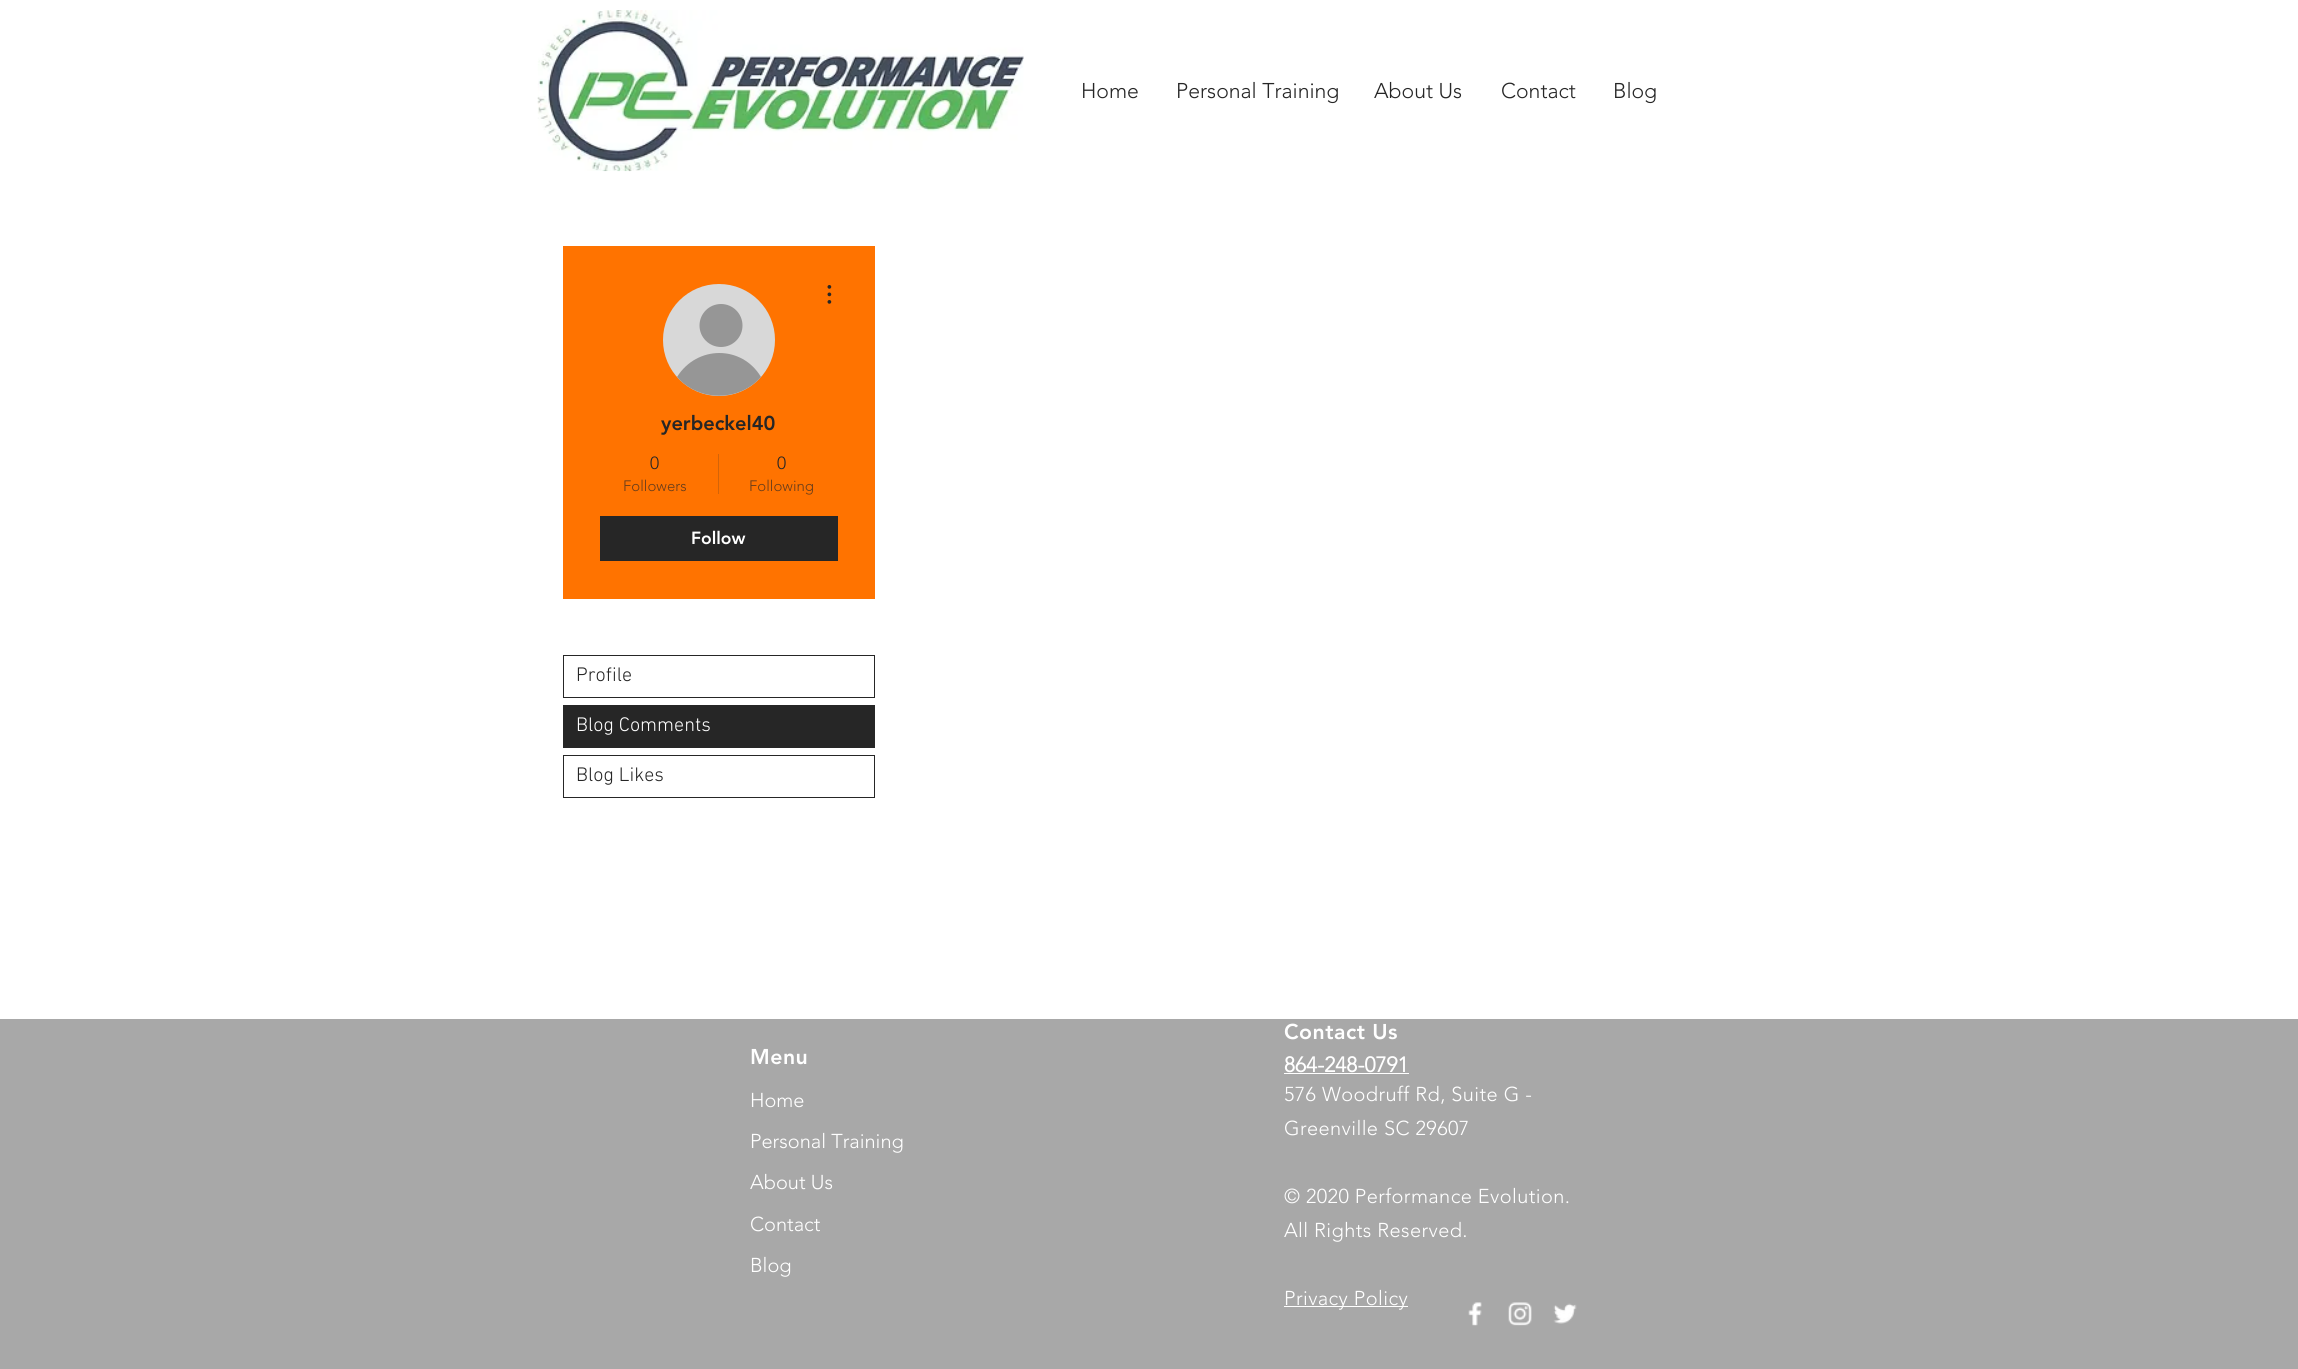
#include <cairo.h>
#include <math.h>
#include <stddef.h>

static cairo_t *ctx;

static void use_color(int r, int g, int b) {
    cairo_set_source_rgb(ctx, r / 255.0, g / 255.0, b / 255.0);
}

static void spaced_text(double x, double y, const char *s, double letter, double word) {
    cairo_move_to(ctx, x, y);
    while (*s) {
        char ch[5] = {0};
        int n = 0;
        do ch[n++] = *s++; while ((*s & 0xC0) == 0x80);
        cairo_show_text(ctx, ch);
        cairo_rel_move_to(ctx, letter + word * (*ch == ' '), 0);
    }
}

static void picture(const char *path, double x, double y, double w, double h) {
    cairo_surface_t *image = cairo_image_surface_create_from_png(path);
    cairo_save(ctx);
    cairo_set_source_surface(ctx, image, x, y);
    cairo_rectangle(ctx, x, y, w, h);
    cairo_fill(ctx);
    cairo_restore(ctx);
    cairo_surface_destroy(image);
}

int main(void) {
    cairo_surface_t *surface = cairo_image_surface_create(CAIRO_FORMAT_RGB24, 2298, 1369);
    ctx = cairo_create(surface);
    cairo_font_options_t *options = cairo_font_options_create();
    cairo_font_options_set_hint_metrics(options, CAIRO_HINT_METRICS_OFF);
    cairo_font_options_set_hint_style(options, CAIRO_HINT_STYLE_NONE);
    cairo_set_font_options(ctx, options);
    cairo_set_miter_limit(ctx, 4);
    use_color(255, 255, 255);
    cairo_paint(ctx);
    picture("img1.png", 537, 10, 487, 162);
    cairo_select_font_face(ctx, "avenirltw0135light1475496 Light", CAIRO_FONT_SLANT_NORMAL, CAIRO_FONT_WEIGHT_NORMAL);
    cairo_set_font_size(ctx, 21.25);
    use_color(38, 38, 38);
    cairo_move_to(ctx, 1081, 98);
    cairo_show_text(ctx, "Home");
    cairo_move_to(ctx, 1176, 98);
    cairo_show_text(ctx, "Personal Training");
    cairo_move_to(ctx, 1374, 98);
    cairo_show_text(ctx, "About Us");
    cairo_move_to(ctx, 1501, 98);
    cairo_show_text(ctx, "Contact");
    cairo_move_to(ctx, 1613, 98);
    cairo_show_text(ctx, "Blog");
    use_color(255, 115, 0);
    cairo_rectangle(ctx, 563, 246, 312, 353);
    cairo_fill(ctx);
    use_color(216, 216, 216);
    cairo_arc(ctx, 719, 340, 56, 0, 2 * M_PI);
    cairo_fill(ctx);
    use_color(150, 150, 150);
    cairo_arc(ctx, 721, 325.5, 21.5, 0, 2 * M_PI);
    cairo_fill(ctx);
    cairo_new_path(ctx);
    cairo_move_to(ctx, 761, 377);
    cairo_curve_to(ctx, 739, 402, 699, 402, 677, 377);
    cairo_curve_to(ctx, 697, 345, 742, 345, 761, 377);
    cairo_close_path(ctx);
    cairo_fill(ctx);
    picture("img2.png", 827, 285, 5, 19);
    cairo_select_font_face(ctx, "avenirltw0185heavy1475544 Black", CAIRO_FONT_SLANT_NORMAL, CAIRO_FONT_WEIGHT_NORMAL);
    cairo_set_font_size(ctx, 20);
    use_color(38, 38, 38);
    cairo_move_to(ctx, 661, 430);
    cairo_show_text(ctx, "yerbeckel40");
    cairo_select_font_face(ctx, "avenirltw0135light1475496 Light", CAIRO_FONT_SLANT_NORMAL, CAIRO_FONT_WEIGHT_NORMAL);
    cairo_set_font_size(ctx, 17.5);
    cairo_move_to(ctx, 650, 469);
    cairo_show_text(ctx, "0");
    cairo_set_font_size(ctx, 15);
    use_color(103, 61, 27);
    cairo_move_to(ctx, 623, 491);
    cairo_show_text(ctx, "Followers");
    use_color(212, 100, 8);
    cairo_rectangle(ctx, 718, 454, 1, 40);
    cairo_fill(ctx);
    cairo_set_font_size(ctx, 17.5);
    use_color(38, 38, 38);
    cairo_move_to(ctx, 777, 469);
    cairo_show_text(ctx, "0");
    cairo_set_font_size(ctx, 15);
    use_color(103, 61, 27);
    cairo_move_to(ctx, 749, 491);
    cairo_show_text(ctx, "Following");
    use_color(38, 38, 38);
    cairo_rectangle(ctx, 600, 516, 238, 45);
    cairo_fill(ctx);
    cairo_select_font_face(ctx, "avenirltw0185heavy1475544 Black", CAIRO_FONT_SLANT_NORMAL, CAIRO_FONT_WEIGHT_NORMAL);
    cairo_set_font_size(ctx, 17.5);
    use_color(255, 255, 255);
    cairo_move_to(ctx, 691, 544);
    cairo_show_text(ctx, "Follow");
    cairo_rectangle(ctx, 563.5, 655.5, 311, 42);
    use_color(38, 38, 38);
    cairo_set_line_width(ctx, 1);
    cairo_stroke(ctx);
    cairo_select_font_face(ctx, "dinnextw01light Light", CAIRO_FONT_SLANT_NORMAL, CAIRO_FONT_WEIGHT_NORMAL);
    cairo_set_font_size(ctx, 20);
    cairo_move_to(ctx, 576, 681);
    cairo_show_text(ctx, "Profile");
    cairo_rectangle(ctx, 563, 705, 312, 43);
    cairo_fill(ctx);
    use_color(255, 255, 255);
    cairo_move_to(ctx, 576, 731);
    cairo_show_text(ctx, "Blog Comments");
    cairo_rectangle(ctx, 563.5, 755.5, 311, 42);
    use_color(38, 38, 38);
    cairo_stroke(ctx);
    cairo_move_to(ctx, 576, 781);
    cairo_show_text(ctx, "Blog Likes");
    use_color(168, 168, 168);
    cairo_rectangle(ctx, 0, 1019, 2298, 350);
    cairo_fill(ctx);
    cairo_select_font_face(ctx, "avenirltw0185heavy1475544 Black", CAIRO_FONT_SLANT_NORMAL, CAIRO_FONT_WEIGHT_NORMAL);
    cairo_set_font_size(ctx, 21.25);
    use_color(255, 255, 255);
    spaced_text(750, 1064, "Menu", 0.5, 0);
    cairo_select_font_face(ctx, "avenirltw0135light1475496 Light", CAIRO_FONT_SLANT_NORMAL, CAIRO_FONT_WEIGHT_NORMAL);
    cairo_set_font_size(ctx, 20);
    cairo_move_to(ctx, 750, 1107);
    cairo_show_text(ctx, "Home");
    cairo_move_to(ctx, 750, 1148);
    cairo_show_text(ctx, "Personal Training");
    cairo_move_to(ctx, 750, 1189);
    cairo_show_text(ctx, "About Us");
    cairo_move_to(ctx, 750, 1231);
    cairo_show_text(ctx, "Contact");
    cairo_move_to(ctx, 750, 1272);
    cairo_show_text(ctx, "Blog");
    cairo_select_font_face(ctx, "avenirltw0185heavy1475544 Black", CAIRO_FONT_SLANT_NORMAL, CAIRO_FONT_WEIGHT_NORMAL);
    cairo_set_font_size(ctx, 21.25);
    spaced_text(1284, 1039, "Contact Us", 0.5, 0);
    cairo_select_font_face(ctx, "avenirltw0135light1475496", CAIRO_FONT_SLANT_NORMAL, CAIRO_FONT_WEIGHT_BOLD);
    cairo_move_to(ctx, 1284, 1072);
    cairo_show_text(ctx, "864-248-0791");
    cairo_rectangle(ctx, 1284, 1073, 125, 1);
    cairo_fill(ctx);
    cairo_select_font_face(ctx, "avenirltw0135light1475496 Light", CAIRO_FONT_SLANT_NORMAL, CAIRO_FONT_WEIGHT_NORMAL);
    cairo_set_font_size(ctx, 20);
    spaced_text(1284, 1101, "576 Woodruff Rd, Suite G -", 0.4, 0);
    spaced_text(1284, 1135, "Greenville SC 29607", 0.4, 0);
    spaced_text(1284, 1203, "© 2020 Performance Evolution.", 0.4, 0);
    spaced_text(1284, 1237, "All Rights Reserved.", 0.4, 0);
    cairo_rectangle(ctx, 1284, 1306, 124, 1);
    cairo_fill(ctx);
    spaced_text(1284, 1305, "Privacy Policy", 0.4, 0);
    picture("img3.png", 1468, 1302, 14, 24);
    picture("img4.png", 1508, 1302, 24, 24);
    picture("img5.png", 1553, 1303, 24, 21);
    cairo_surface_write_to_png(surface, "result.png");
    cairo_font_options_destroy(options);
    cairo_destroy(ctx);
    cairo_surface_destroy(surface);
    return 0;
}
